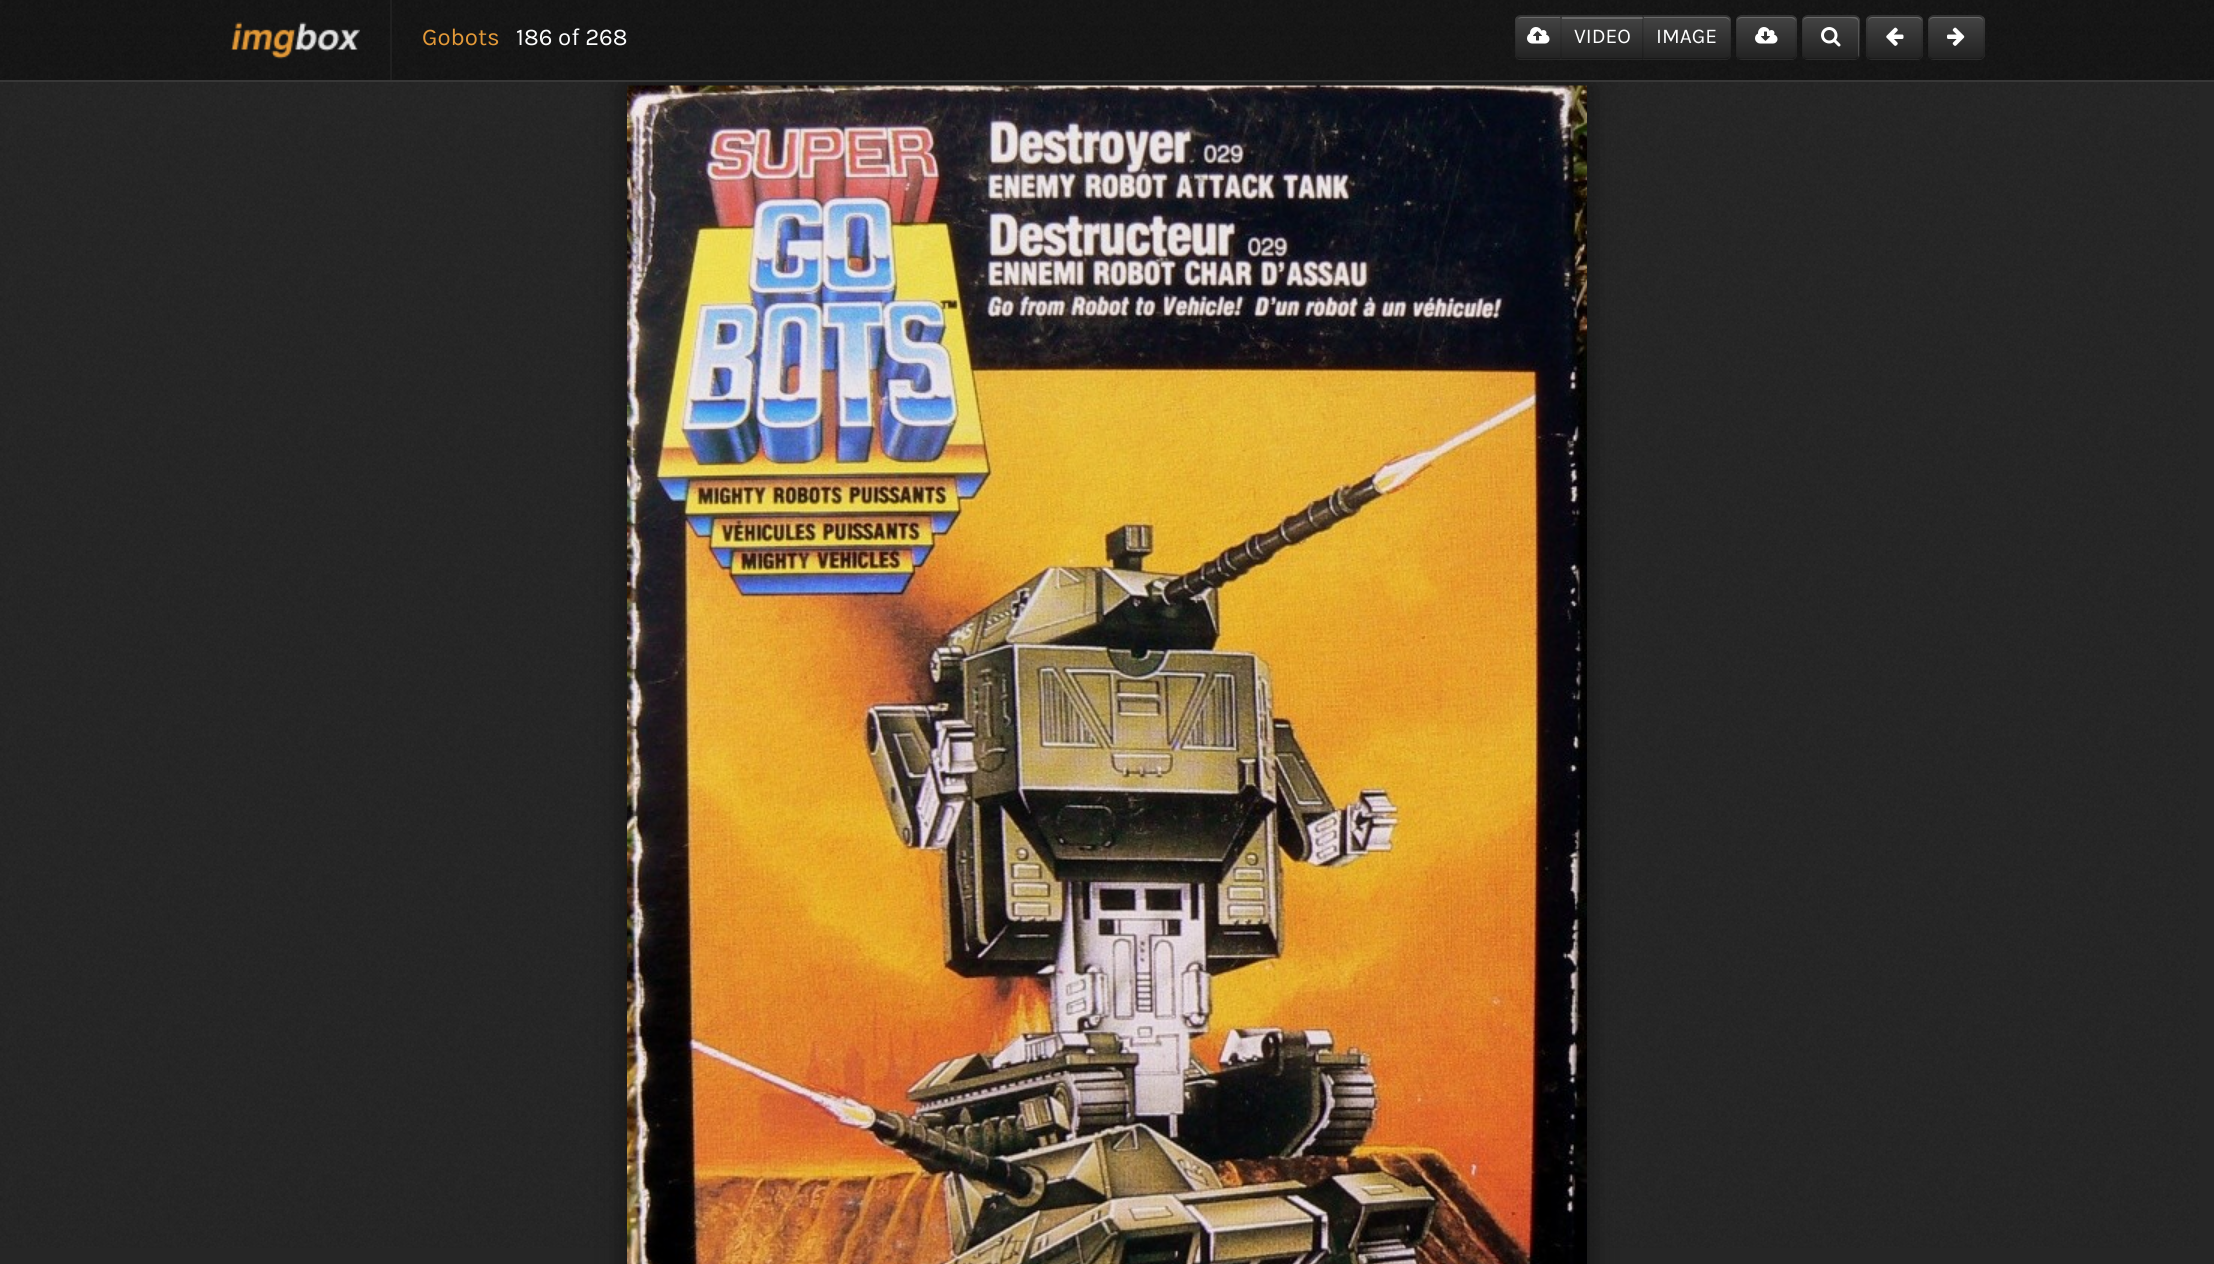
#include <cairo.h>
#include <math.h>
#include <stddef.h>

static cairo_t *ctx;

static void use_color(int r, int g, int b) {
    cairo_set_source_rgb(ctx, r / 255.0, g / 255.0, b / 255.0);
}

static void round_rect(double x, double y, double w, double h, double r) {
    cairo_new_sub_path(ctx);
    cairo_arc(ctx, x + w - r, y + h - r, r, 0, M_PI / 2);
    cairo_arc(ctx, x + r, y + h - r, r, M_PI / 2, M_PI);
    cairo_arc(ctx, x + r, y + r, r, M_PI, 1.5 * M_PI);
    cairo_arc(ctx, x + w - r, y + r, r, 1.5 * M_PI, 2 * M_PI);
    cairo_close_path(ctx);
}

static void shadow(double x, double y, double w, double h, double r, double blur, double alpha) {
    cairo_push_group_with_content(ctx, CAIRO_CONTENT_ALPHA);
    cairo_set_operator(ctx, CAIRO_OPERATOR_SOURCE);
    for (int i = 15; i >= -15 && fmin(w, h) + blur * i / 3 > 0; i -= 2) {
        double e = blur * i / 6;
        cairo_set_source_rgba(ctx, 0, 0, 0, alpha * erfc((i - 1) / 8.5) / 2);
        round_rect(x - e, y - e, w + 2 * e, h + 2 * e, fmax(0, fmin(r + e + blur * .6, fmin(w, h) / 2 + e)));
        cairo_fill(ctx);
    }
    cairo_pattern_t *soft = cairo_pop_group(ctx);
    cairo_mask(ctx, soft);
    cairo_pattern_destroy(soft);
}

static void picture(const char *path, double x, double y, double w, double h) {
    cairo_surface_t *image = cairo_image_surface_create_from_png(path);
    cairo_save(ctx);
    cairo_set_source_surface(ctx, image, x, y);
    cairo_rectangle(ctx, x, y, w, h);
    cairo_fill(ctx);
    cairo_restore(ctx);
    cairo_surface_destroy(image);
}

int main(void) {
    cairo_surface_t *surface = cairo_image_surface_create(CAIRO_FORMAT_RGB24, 2214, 1264);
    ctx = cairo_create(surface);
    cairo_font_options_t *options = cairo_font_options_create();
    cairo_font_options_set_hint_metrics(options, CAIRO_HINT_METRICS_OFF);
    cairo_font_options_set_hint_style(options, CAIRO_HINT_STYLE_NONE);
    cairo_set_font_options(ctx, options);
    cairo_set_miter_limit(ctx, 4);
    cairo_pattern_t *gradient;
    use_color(38, 38, 38);
    cairo_paint(ctx);
    picture("img1.png", 0, 82, 2199, 1166);
    use_color(17, 17, 17);
    shadow(627, 86, 960, 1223, 0, 15, 1);
    picture("img2.png", 0, 0, 2214, 80);
    use_color(55, 55, 55);
    cairo_rectangle(ctx, 0, 80, 2214, 2);
    cairo_fill(ctx);
    picture("img3.png", 231, 22, 129, 37);
    use_color(32, 32, 32);
    cairo_rectangle(ctx, 390, 0, 2, 80);
    cairo_fill(ctx);
    cairo_select_font_face(ctx, "Karla", CAIRO_FONT_SLANT_NORMAL, CAIRO_FONT_WEIGHT_NORMAL);
    cairo_set_font_size(ctx, 24);
    use_color(227, 153, 56);
    cairo_move_to(ctx, 422, 45);
    cairo_show_text(ctx, "Gobots");
    use_color(253, 254, 255);
    cairo_move_to(ctx, 516, 45);
    cairo_show_text(ctx, "186 of 268");
    use_color(54, 54, 54);
    cairo_new_path(ctx);
    cairo_move_to(ctx, 1521, 15);
    cairo_line_to(ctx, 1562, 15);
    cairo_line_to(ctx, 1562, 60);
    cairo_line_to(ctx, 1521, 60);
    cairo_curve_to(ctx, 1517.5, 60, 1515, 57.5, 1515, 54);
    cairo_line_to(ctx, 1515, 21);
    cairo_curve_to(ctx, 1515, 17.5, 1517.5, 15, 1521, 15);
    cairo_close_path(ctx);
    cairo_fill(ctx);
    cairo_save(ctx);
    cairo_new_path(ctx);
    cairo_move_to(ctx, 1521, 15);
    cairo_line_to(ctx, 1562, 15);
    cairo_line_to(ctx, 1562, 60);
    cairo_line_to(ctx, 1521, 60);
    cairo_curve_to(ctx, 1517.5, 60, 1515, 57.5, 1515, 54);
    cairo_line_to(ctx, 1515, 21);
    cairo_curve_to(ctx, 1515, 17.5, 1517.5, 15, 1521, 15);
    cairo_close_path(ctx);
    cairo_clip(ctx);
    gradient = cairo_pattern_create_linear(1538, 16, 1538, 59);
    cairo_pattern_add_color_stop_rgba(gradient, 0, 0.267, 0.267, 0.267, 1);
    cairo_pattern_add_color_stop_rgba(gradient, 1, 0.133, 0.133, 0.133, 1);
    cairo_set_source(ctx, gradient);
    cairo_pattern_destroy(gradient);
    cairo_rectangle(ctx, 1515, 17, 45, 42);
    cairo_fill(ctx);
    cairo_restore(ctx);
    use_color(105, 105, 105);
    cairo_new_path(ctx);
    cairo_move_to(ctx, 1521, 18);
    cairo_line_to(ctx, 1560, 18);
    cairo_line_to(ctx, 1560, 17);
    cairo_line_to(ctx, 1522, 17);
    cairo_curve_to(ctx, 1520, 17, 1519, 18, 1518, 19);
    cairo_close_path(ctx);
    cairo_fill(ctx);
    cairo_set_source_rgba(ctx, 0, 0, 0, 0.1);
    cairo_new_path(ctx);
    cairo_move_to(ctx, 1521, 15);
    cairo_curve_to(ctx, 1520, 15, 1518, 16, 1517, 17);
    cairo_line_to(ctx, 1518, 18);
    cairo_curve_to(ctx, 1519, 17, 1520, 16, 1521, 16);
    cairo_line_to(ctx, 1560, 16);
    cairo_line_to(ctx, 1562, 15);
    cairo_close_path(ctx);
    cairo_fill(ctx);
    cairo_set_source_rgba(ctx, 0, 0, 0, 0.25);
    cairo_new_path(ctx);
    cairo_move_to(ctx, 1562, 60);
    cairo_line_to(ctx, 1560, 58);
    cairo_line_to(ctx, 1521, 58);
    cairo_line_to(ctx, 1518, 57);
    cairo_line_to(ctx, 1517, 58);
    cairo_curve_to(ctx, 1518, 59, 1520, 60, 1521, 60);
    cairo_close_path(ctx);
    cairo_fill(ctx);
    cairo_set_source_rgba(ctx, 0, 0, 0, 0.1);
    cairo_new_path(ctx);
    cairo_move_to(ctx, 1515, 21);
    cairo_line_to(ctx, 1515, 54);
    cairo_curve_to(ctx, 1515, 56, 1516, 57, 1517, 58);
    cairo_line_to(ctx, 1518, 57);
    cairo_curve_to(ctx, 1517, 56, 1516, 55, 1516, 54);
    cairo_line_to(ctx, 1516, 21);
    cairo_curve_to(ctx, 1516, 20, 1517, 19, 1518, 18);
    cairo_line_to(ctx, 1517, 17);
    cairo_curve_to(ctx, 1516, 18, 1515, 20, 1515, 21);
    cairo_close_path(ctx);
    cairo_fill(ctx);
    picture("img4.png", 1527, 27, 23, 17);
    use_color(54, 54, 54);
    cairo_rectangle(ctx, 1560, 15, 83, 45);
    cairo_fill(ctx);
    gradient = cairo_pattern_create_linear(1602, 16, 1602, 59);
    cairo_pattern_add_color_stop_rgba(gradient, 0, 0.267, 0.267, 0.267, 1);
    cairo_pattern_add_color_stop_rgba(gradient, 1, 0.133, 0.133, 0.133, 1);
    cairo_set_source(ctx, gradient);
    cairo_pattern_destroy(gradient);
    cairo_rectangle(ctx, 1560, 17, 83, 42);
    cairo_fill(ctx);
    use_color(104, 104, 104);
    cairo_rectangle(ctx, 1562, 17, 81, 2);
    cairo_fill(ctx);
    use_color(49, 49, 49);
    cairo_new_path(ctx);
    cairo_move_to(ctx, 1560, 15);
    cairo_line_to(ctx, 1644, 15);
    cairo_line_to(ctx, 1642, 16);
    cairo_line_to(ctx, 1562, 16);
    cairo_close_path(ctx);
    cairo_fill(ctx);
    cairo_set_source_rgba(ctx, 0, 0, 0, 0.1);
    cairo_new_path(ctx);
    cairo_move_to(ctx, 1644, 15);
    cairo_line_to(ctx, 1644, 60);
    cairo_line_to(ctx, 1642, 58);
    cairo_line_to(ctx, 1642, 16);
    cairo_close_path(ctx);
    cairo_fill(ctx);
    cairo_set_source_rgba(ctx, 0, 0, 0, 0.25);
    cairo_new_path(ctx);
    cairo_move_to(ctx, 1644, 60);
    cairo_line_to(ctx, 1560, 60);
    cairo_line_to(ctx, 1562, 58);
    cairo_line_to(ctx, 1642, 58);
    cairo_close_path(ctx);
    cairo_fill(ctx);
    cairo_set_source_rgba(ctx, 0, 0, 0, 0.1);
    cairo_new_path(ctx);
    cairo_move_to(ctx, 1560, 60);
    cairo_line_to(ctx, 1560, 15);
    cairo_line_to(ctx, 1562, 16);
    cairo_line_to(ctx, 1562, 58);
    cairo_close_path(ctx);
    cairo_fill(ctx);
    cairo_set_font_size(ctx, 21);
    use_color(253, 254, 255);
    cairo_move_to(ctx, 1574, 43);
    cairo_show_text(ctx, "VIDEO");
    use_color(54, 54, 54);
    cairo_new_path(ctx);
    cairo_move_to(ctx, 1643, 15);
    cairo_line_to(ctx, 1725, 15);
    cairo_curve_to(ctx, 1728.5, 15, 1731, 17.5, 1731, 21);
    cairo_line_to(ctx, 1731, 54);
    cairo_curve_to(ctx, 1731, 57.5, 1728.5, 60, 1725, 60);
    cairo_line_to(ctx, 1643, 60);
    cairo_close_path(ctx);
    cairo_fill(ctx);
    cairo_save(ctx);
    cairo_new_path(ctx);
    cairo_move_to(ctx, 1643, 15);
    cairo_line_to(ctx, 1725, 15);
    cairo_curve_to(ctx, 1728.5, 15, 1731, 17.5, 1731, 21);
    cairo_line_to(ctx, 1731, 54);
    cairo_curve_to(ctx, 1731, 57.5, 1728.5, 60, 1725, 60);
    cairo_line_to(ctx, 1643, 60);
    cairo_close_path(ctx);
    cairo_clip(ctx);
    gradient = cairo_pattern_create_linear(1687, 16, 1687, 59);
    cairo_pattern_add_color_stop_rgba(gradient, 0, 0.267, 0.267, 0.267, 1);
    cairo_pattern_add_color_stop_rgba(gradient, 1, 0.133, 0.133, 0.133, 1);
    cairo_set_source(ctx, gradient);
    cairo_pattern_destroy(gradient);
    cairo_rectangle(ctx, 1643, 17, 88, 42);
    cairo_fill(ctx);
    cairo_restore(ctx);
    use_color(105, 105, 105);
    cairo_new_path(ctx);
    cairo_move_to(ctx, 1644, 18);
    cairo_line_to(ctx, 1725, 18);
    cairo_curve_to(ctx, 1727, 18, 1730, 20, 1730, 22);
    cairo_curve_to(ctx, 1730, 19, 1728, 17, 1725, 17);
    cairo_line_to(ctx, 1644, 17);
    cairo_close_path(ctx);
    cairo_fill(ctx);
    cairo_set_source_rgba(ctx, 0, 0, 0, 0.1);
    cairo_new_path(ctx);
    cairo_move_to(ctx, 1644, 16);
    cairo_line_to(ctx, 1725, 16);
    cairo_line_to(ctx, 1728, 18);
    cairo_line_to(ctx, 1729, 17);
    cairo_line_to(ctx, 1726, 15);
    cairo_line_to(ctx, 1642, 15);
    cairo_close_path(ctx);
    cairo_fill(ctx);
    cairo_new_path(ctx);
    cairo_move_to(ctx, 1731, 54);
    cairo_line_to(ctx, 1731, 21);
    cairo_curve_to(ctx, 1731, 20, 1730, 18, 1729, 17);
    cairo_line_to(ctx, 1728, 18);
    cairo_curve_to(ctx, 1729, 19, 1730, 20, 1730, 21);
    cairo_line_to(ctx, 1730, 54);
    cairo_curve_to(ctx, 1730, 55, 1729, 56, 1728, 57);
    cairo_line_to(ctx, 1729, 58);
    cairo_curve_to(ctx, 1730, 57, 1731, 56, 1731, 54);
    cairo_close_path(ctx);
    cairo_fill(ctx);
    cairo_set_source_rgba(ctx, 0, 0, 0, 0.25);
    cairo_new_path(ctx);
    cairo_move_to(ctx, 1642, 60);
    cairo_line_to(ctx, 1726, 60);
    cairo_line_to(ctx, 1729, 58);
    cairo_line_to(ctx, 1728, 57);
    cairo_line_to(ctx, 1725, 58);
    cairo_line_to(ctx, 1644, 58);
    cairo_close_path(ctx);
    cairo_fill(ctx);
    cairo_set_source_rgba(ctx, 0, 0, 0, 0.1);
    cairo_new_path(ctx);
    cairo_move_to(ctx, 1642, 60);
    cairo_line_to(ctx, 1644, 58);
    cairo_line_to(ctx, 1644, 16);
    cairo_line_to(ctx, 1642, 15);
    cairo_close_path(ctx);
    cairo_fill(ctx);
    use_color(253, 254, 255);
    cairo_move_to(ctx, 1656, 43);
    cairo_show_text(ctx, "IMAGE");
    use_color(54, 54, 54);
    round_rect(1736, 15, 61, 45, 6);
    cairo_fill(ctx);
    cairo_save(ctx);
    round_rect(1736, 15, 61, 45, 6);
    cairo_clip(ctx);
    gradient = cairo_pattern_create_linear(1766, 16, 1766, 59);
    cairo_pattern_add_color_stop_rgba(gradient, 0, 0.267, 0.267, 0.267, 1);
    cairo_pattern_add_color_stop_rgba(gradient, 1, 0.133, 0.133, 0.133, 1);
    cairo_set_source(ctx, gradient);
    cairo_pattern_destroy(gradient);
    cairo_rectangle(ctx, 1736, 17, 61, 42);
    cairo_fill(ctx);
    cairo_restore(ctx);
    use_color(105, 105, 105);
    cairo_new_path(ctx);
    cairo_move_to(ctx, 1742, 18);
    cairo_line_to(ctx, 1791, 18);
    cairo_curve_to(ctx, 1793, 18, 1796, 20, 1796, 22);
    cairo_curve_to(ctx, 1796, 19, 1794, 17, 1791, 17);
    cairo_line_to(ctx, 1742, 17);
    cairo_curve_to(ctx, 1739, 17, 1737, 19, 1737, 22);
    cairo_curve_to(ctx, 1737, 20, 1739, 18, 1742, 18);
    cairo_close_path(ctx);
    cairo_fill(ctx);
    cairo_new_path(ctx);
    cairo_move_to(ctx, 1794.5, 57.5);
    cairo_curve_to(ctx, 1793.5, 58.5, 1792.5, 59, 1791, 59);
    cairo_line_to(ctx, 1741.5, 59);
    cairo_curve_to(ctx, 1740, 59, 1739, 58.5, 1738, 57.5);
    cairo_set_source_rgba(ctx, 0, 0, 0, 0.25);
    cairo_set_line_width(ctx, 1.5);
    cairo_stroke(ctx);
    cairo_new_path(ctx);
    cairo_move_to(ctx, 1738, 57.5);
    cairo_curve_to(ctx, 1737, 56.5, 1736, 55.5, 1736, 54);
    cairo_line_to(ctx, 1736, 21);
    cairo_curve_to(ctx, 1736, 19.5, 1737, 18.5, 1738, 17.5);
    cairo_curve_to(ctx, 1739, 16.5, 1740, 16, 1741.5, 16);
    cairo_line_to(ctx, 1791, 16);
    cairo_curve_to(ctx, 1792.5, 16, 1793.5, 16.5, 1794.5, 17.5);
    cairo_curve_to(ctx, 1795.5, 18.5, 1796, 19.5, 1796, 21);
    cairo_line_to(ctx, 1796, 54);
    cairo_curve_to(ctx, 1796, 55.5, 1795.5, 56.5, 1794.5, 57.5);
    cairo_set_source_rgba(ctx, 0, 0, 0, 0.1);
    cairo_stroke(ctx);
    picture("img5.png", 1755, 27, 23, 17);
    use_color(54, 54, 54);
    round_rect(1802, 15, 58, 45, 6);
    cairo_fill(ctx);
    cairo_save(ctx);
    round_rect(1802, 15, 58, 45, 6);
    cairo_clip(ctx);
    gradient = cairo_pattern_create_linear(1831, 16, 1831, 59);
    cairo_pattern_add_color_stop_rgba(gradient, 0, 0.267, 0.267, 0.267, 1);
    cairo_pattern_add_color_stop_rgba(gradient, 1, 0.133, 0.133, 0.133, 1);
    cairo_set_source(ctx, gradient);
    cairo_pattern_destroy(gradient);
    cairo_rectangle(ctx, 1802, 17, 58, 42);
    cairo_fill(ctx);
    cairo_restore(ctx);
    cairo_set_source_rgba(ctx, 1, 1, 1, 0.2);
    cairo_new_path(ctx);
    cairo_move_to(ctx, 1808, 18);
    cairo_line_to(ctx, 1846, 18);
    cairo_curve_to(ctx, 1861, 18, 1858, 19, 1858, 33);
    cairo_line_to(ctx, 1858, 57);
    cairo_curve_to(ctx, 1859, 56, 1859, 55, 1859, 54);
    cairo_line_to(ctx, 1859, 22);
    cairo_curve_to(ctx, 1859, 19, 1857, 17, 1854, 17);
    cairo_line_to(ctx, 1808, 17);
    cairo_curve_to(ctx, 1805, 17, 1803, 19, 1803, 22);
    cairo_curve_to(ctx, 1803, 20, 1805, 18, 1808, 18);
    cairo_close_path(ctx);
    cairo_fill(ctx);
    cairo_new_path(ctx);
    cairo_move_to(ctx, 1857.5, 57.5);
    cairo_curve_to(ctx, 1856.5, 58.5, 1855.5, 59, 1854, 59);
    cairo_line_to(ctx, 1807.5, 59);
    cairo_curve_to(ctx, 1806, 59, 1805, 58.5, 1804, 57.5);
    cairo_set_source_rgba(ctx, 0, 0, 0, 0.25);
    cairo_stroke(ctx);
    cairo_new_path(ctx);
    cairo_move_to(ctx, 1804, 57.5);
    cairo_curve_to(ctx, 1803, 56.5, 1802, 55.5, 1802, 54);
    cairo_line_to(ctx, 1802, 21);
    cairo_curve_to(ctx, 1802, 19.5, 1803, 18.5, 1804, 17.5);
    cairo_curve_to(ctx, 1805, 16.5, 1806, 16, 1807.5, 16);
    cairo_line_to(ctx, 1854, 16);
    cairo_curve_to(ctx, 1855.5, 16, 1856.5, 16.5, 1857.5, 17.5);
    cairo_curve_to(ctx, 1858.5, 18.5, 1859, 19.5, 1859, 21);
    cairo_line_to(ctx, 1859, 54);
    cairo_curve_to(ctx, 1859, 55.5, 1858.5, 56.5, 1857.5, 57.5);
    cairo_set_source_rgba(ctx, 0, 0, 0, 0.1);
    cairo_stroke(ctx);
    picture("img6.png", 1821, 27, 20, 20);
    use_color(54, 54, 54);
    round_rect(1866, 15, 57, 45, 6);
    cairo_fill(ctx);
    cairo_save(ctx);
    round_rect(1866, 15, 57, 45, 6);
    cairo_clip(ctx);
    gradient = cairo_pattern_create_linear(1895, 16, 1895, 59);
    cairo_pattern_add_color_stop_rgba(gradient, 0, 0.267, 0.267, 0.267, 1);
    cairo_pattern_add_color_stop_rgba(gradient, 1, 0.133, 0.133, 0.133, 1);
    cairo_set_source(ctx, gradient);
    cairo_pattern_destroy(gradient);
    cairo_rectangle(ctx, 1866, 17, 57, 42);
    cairo_fill(ctx);
    cairo_restore(ctx);
    use_color(105, 105, 105);
    cairo_new_path(ctx);
    cairo_move_to(ctx, 1872, 18);
    cairo_line_to(ctx, 1917, 18);
    cairo_curve_to(ctx, 1919, 18, 1922, 20, 1922, 22);
    cairo_curve_to(ctx, 1922, 19, 1920, 17, 1917, 17);
    cairo_line_to(ctx, 1873, 17);
    cairo_curve_to(ctx, 1870, 17, 1868, 19, 1868, 22);
    cairo_curve_to(ctx, 1868, 20, 1870, 18, 1872, 18);
    cairo_close_path(ctx);
    cairo_fill(ctx);
    cairo_new_path(ctx);
    cairo_move_to(ctx, 1920.5, 57.5);
    cairo_curve_to(ctx, 1919.5, 58.5, 1918.5, 59, 1917, 59);
    cairo_line_to(ctx, 1872, 59);
    cairo_curve_to(ctx, 1870.5, 59, 1869.5, 58.5, 1868.5, 57.5);
    cairo_set_source_rgba(ctx, 0, 0, 0, 0.25);
    cairo_stroke(ctx);
    cairo_new_path(ctx);
    cairo_move_to(ctx, 1868.5, 57.5);
    cairo_curve_to(ctx, 1867.5, 56.5, 1867, 55.5, 1867, 54);
    cairo_line_to(ctx, 1867, 21);
    cairo_curve_to(ctx, 1867, 19.5, 1867.5, 18.5, 1868.5, 17.5);
    cairo_curve_to(ctx, 1869.5, 16.5, 1870.5, 16, 1872, 16);
    cairo_line_to(ctx, 1917, 16);
    cairo_curve_to(ctx, 1918.5, 16, 1919.5, 16.5, 1920.5, 17.5);
    cairo_curve_to(ctx, 1921.5, 18.5, 1922, 19.5, 1922, 21);
    cairo_line_to(ctx, 1922, 54);
    cairo_curve_to(ctx, 1922, 55.5, 1921.5, 56.5, 1920.5, 57.5);
    cairo_set_source_rgba(ctx, 0, 0, 0, 0.1);
    cairo_stroke(ctx);
    picture("img7.png", 1886, 27, 18, 19);
    use_color(54, 54, 54);
    round_rect(1928, 15, 57, 45, 6);
    cairo_fill(ctx);
    cairo_save(ctx);
    round_rect(1928, 15, 57, 45, 6);
    cairo_clip(ctx);
    gradient = cairo_pattern_create_linear(1956, 16, 1956, 59);
    cairo_pattern_add_color_stop_rgba(gradient, 0, 0.267, 0.267, 0.267, 1);
    cairo_pattern_add_color_stop_rgba(gradient, 1, 0.133, 0.133, 0.133, 1);
    cairo_set_source(ctx, gradient);
    cairo_pattern_destroy(gradient);
    cairo_rectangle(ctx, 1928, 17, 57, 42);
    cairo_fill(ctx);
    cairo_restore(ctx);
    use_color(105, 105, 105);
    cairo_new_path(ctx);
    cairo_move_to(ctx, 1934, 18);
    cairo_line_to(ctx, 1978, 18);
    cairo_curve_to(ctx, 1981, 18, 1983, 20, 1983, 22);
    cairo_curve_to(ctx, 1983, 19, 1981, 17, 1978, 17);
    cairo_line_to(ctx, 1934, 17);
    cairo_curve_to(ctx, 1931, 17, 1929, 19, 1929, 22);
    cairo_curve_to(ctx, 1929, 20, 1931, 18, 1934, 18);
    cairo_close_path(ctx);
    cairo_fill(ctx);
    cairo_new_path(ctx);
    cairo_move_to(ctx, 1982, 57.5);
    cairo_curve_to(ctx, 1981, 58.5, 1980, 59, 1978.5, 59);
    cairo_line_to(ctx, 1933.5, 59);
    cairo_curve_to(ctx, 1932, 59, 1931, 58.5, 1930, 57.5);
    cairo_set_source_rgba(ctx, 0, 0, 0, 0.25);
    cairo_stroke(ctx);
    cairo_new_path(ctx);
    cairo_move_to(ctx, 1930, 57.5);
    cairo_curve_to(ctx, 1929, 56.5, 1928, 55.5, 1928, 54);
    cairo_line_to(ctx, 1928, 21);
    cairo_curve_to(ctx, 1928, 19.5, 1929, 18.5, 1930, 17.5);
    cairo_curve_to(ctx, 1931, 16.5, 1932, 16, 1933.5, 16);
    cairo_line_to(ctx, 1978.5, 16);
    cairo_curve_to(ctx, 1980, 16, 1981, 16.5, 1982, 17.5);
    cairo_curve_to(ctx, 1983, 18.5, 1984, 19.5, 1984, 21);
    cairo_line_to(ctx, 1984, 54);
    cairo_curve_to(ctx, 1984, 55.5, 1983, 56.5, 1982, 57.5);
    cairo_set_source_rgba(ctx, 0, 0, 0, 0.1);
    cairo_stroke(ctx);
    picture("img8.png", 1947, 27, 18, 19);
    picture("img9.png", 627, 85, 960, 1179);
    cairo_surface_write_to_png(surface, "result.png");
    cairo_font_options_destroy(options);
    cairo_destroy(ctx);
    cairo_surface_destroy(surface);
    return 0;
}
